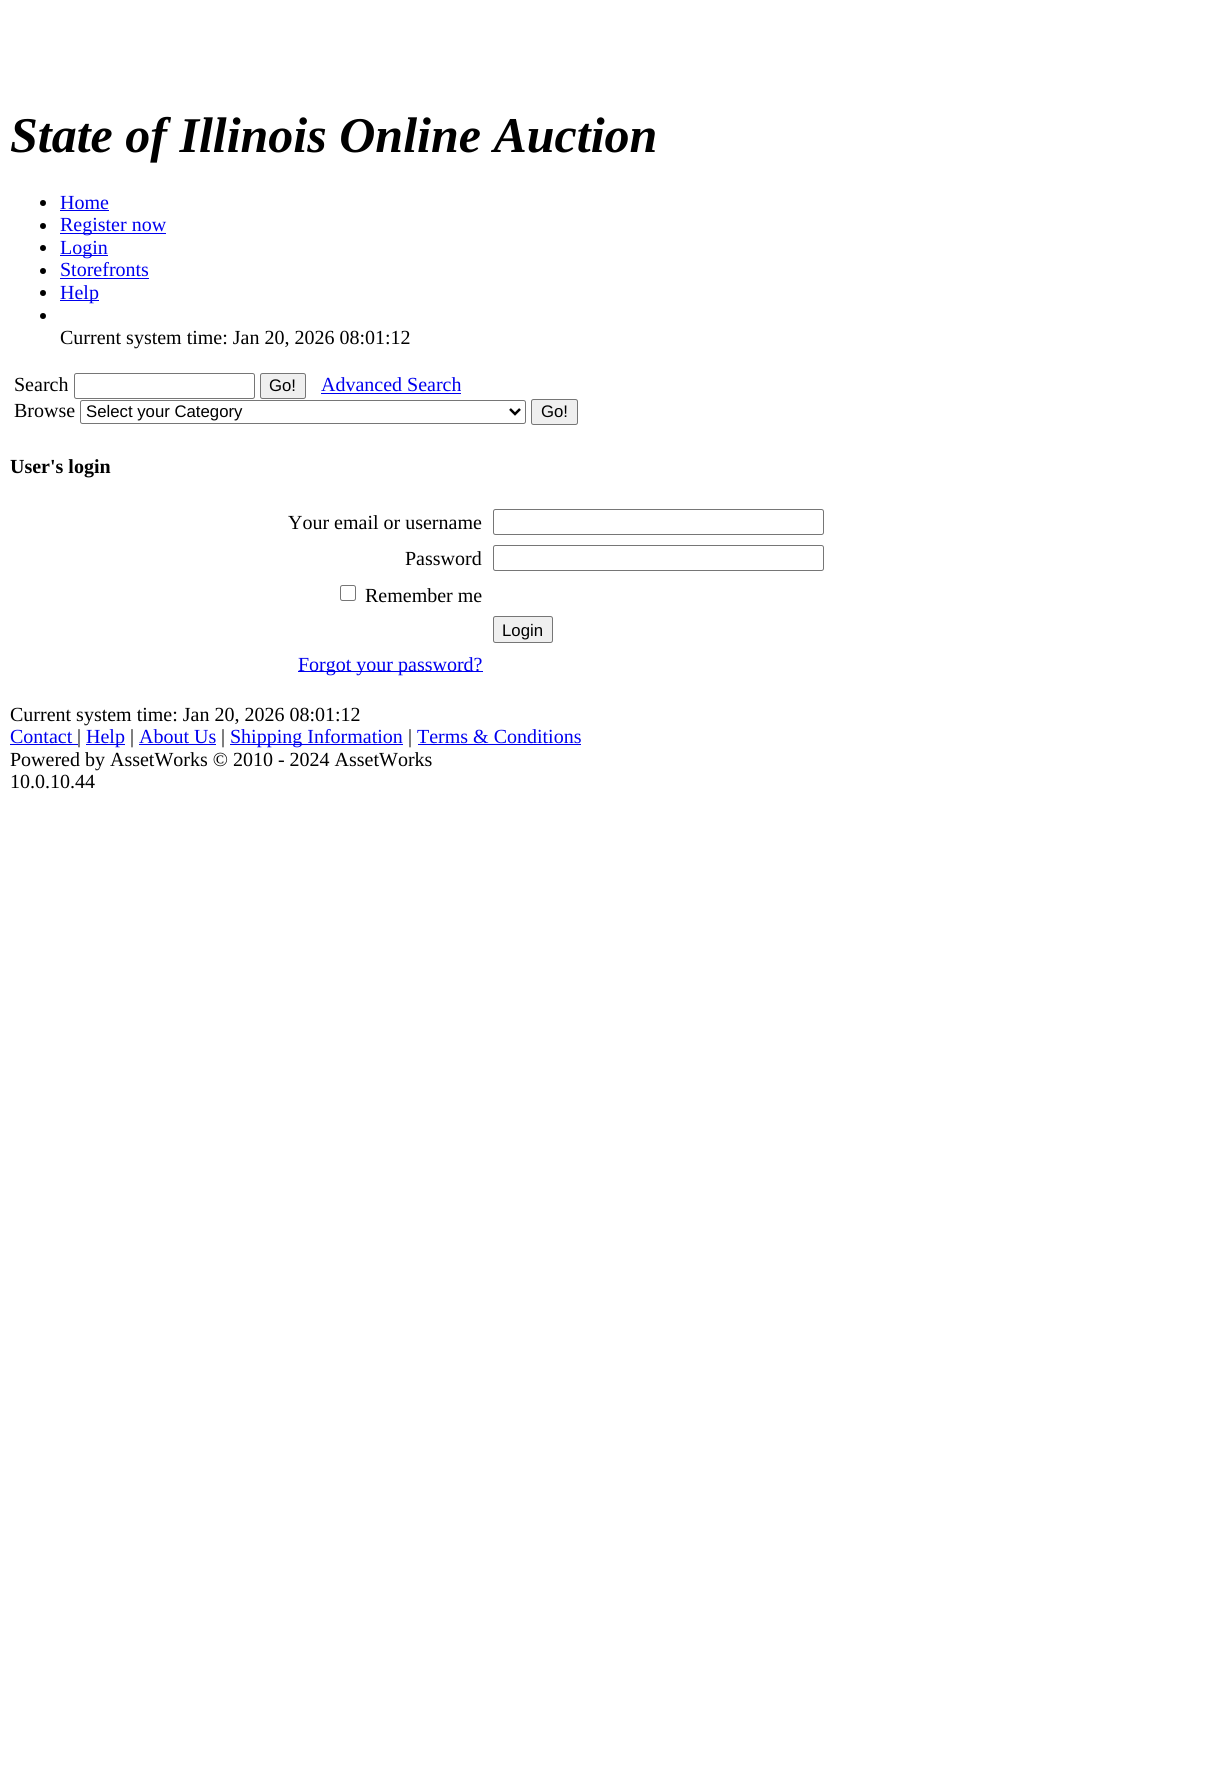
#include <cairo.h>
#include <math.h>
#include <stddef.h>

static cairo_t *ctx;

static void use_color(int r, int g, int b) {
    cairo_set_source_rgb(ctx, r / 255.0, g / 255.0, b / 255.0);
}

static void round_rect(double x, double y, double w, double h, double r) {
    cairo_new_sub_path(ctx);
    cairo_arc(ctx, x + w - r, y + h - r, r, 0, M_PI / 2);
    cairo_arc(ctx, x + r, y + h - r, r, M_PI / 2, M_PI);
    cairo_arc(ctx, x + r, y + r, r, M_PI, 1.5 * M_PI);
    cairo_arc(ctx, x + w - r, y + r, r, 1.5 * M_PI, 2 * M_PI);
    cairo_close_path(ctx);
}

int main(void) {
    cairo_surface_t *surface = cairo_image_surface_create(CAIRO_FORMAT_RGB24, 1212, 1788);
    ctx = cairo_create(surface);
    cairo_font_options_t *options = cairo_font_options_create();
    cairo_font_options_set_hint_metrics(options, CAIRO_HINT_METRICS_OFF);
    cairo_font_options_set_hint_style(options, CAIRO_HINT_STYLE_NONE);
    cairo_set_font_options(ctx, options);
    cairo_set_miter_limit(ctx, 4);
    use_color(255, 255, 255);
    cairo_paint(ctx);
    cairo_select_font_face(ctx, "Liberation Serif", CAIRO_FONT_SLANT_ITALIC, CAIRO_FONT_WEIGHT_BOLD);
    cairo_set_font_size(ctx, 50);
    use_color(0, 0, 0);
    cairo_move_to(ctx, 10, 152);
    cairo_show_text(ctx, "State of Illinois Online Auction");
    cairo_new_path(ctx);
    cairo_arc(ctx, 43, 203, 3, 0, 2 * M_PI);
    cairo_fill(ctx);
    cairo_select_font_face(ctx, "Liberation Serif", CAIRO_FONT_SLANT_NORMAL, CAIRO_FONT_WEIGHT_NORMAL);
    cairo_set_font_size(ctx, 20);
    use_color(0, 0, 238);
    cairo_move_to(ctx, 60, 209);
    cairo_show_text(ctx, "Home");
    cairo_rectangle(ctx, 60, 210, 49, 1);
    cairo_fill(ctx);
    use_color(0, 0, 0);
    cairo_arc(ctx, 43, 226, 3, 0, 2 * M_PI);
    cairo_fill(ctx);
    use_color(0, 0, 238);
    cairo_rectangle(ctx, 60, 233, 106, 1);
    cairo_fill(ctx);
    cairo_move_to(ctx, 60, 231);
    cairo_show_text(ctx, "Register now");
    use_color(0, 0, 0);
    cairo_new_path(ctx);
    cairo_arc(ctx, 43, 248, 3, 0, 2 * M_PI);
    cairo_fill(ctx);
    use_color(0, 0, 238);
    cairo_rectangle(ctx, 60, 255, 48, 1);
    cairo_fill(ctx);
    cairo_move_to(ctx, 60, 254);
    cairo_show_text(ctx, "Login");
    use_color(0, 0, 0);
    cairo_new_path(ctx);
    cairo_arc(ctx, 43, 271, 3, 0, 2 * M_PI);
    cairo_fill(ctx);
    use_color(0, 0, 238);
    cairo_move_to(ctx, 60, 276);
    cairo_show_text(ctx, "Storefronts");
    cairo_rectangle(ctx, 60, 278, 89, 1);
    cairo_fill(ctx);
    use_color(0, 0, 0);
    cairo_arc(ctx, 43, 293, 3, 0, 2 * M_PI);
    cairo_fill(ctx);
    use_color(0, 0, 238);
    cairo_rectangle(ctx, 60, 300, 39, 1);
    cairo_fill(ctx);
    cairo_move_to(ctx, 60, 299);
    cairo_show_text(ctx, "Help");
    use_color(0, 0, 0);
    cairo_new_path(ctx);
    cairo_arc(ctx, 43, 316, 3, 0, 2 * M_PI);
    cairo_fill(ctx);
    cairo_move_to(ctx, 60, 344);
    cairo_show_text(ctx, "Current system time: Jan 20, 2026 08:01:12");
    cairo_move_to(ctx, 14, 391);
    cairo_show_text(ctx, "Search");
    round_rect(74.5, 373.5, 180, 25, 2);
    use_color(118, 118, 118);
    cairo_set_line_width(ctx, 1);
    cairo_stroke(ctx);
    use_color(239, 239, 239);
    round_rect(260.5, 373.5, 45, 25, 2);
    cairo_fill_preserve(ctx);
    use_color(118, 118, 118);
    cairo_stroke(ctx);
    cairo_select_font_face(ctx, "Liberation Sans", CAIRO_FONT_SLANT_NORMAL, CAIRO_FONT_WEIGHT_NORMAL);
    cairo_set_font_size(ctx, 16.75);
    use_color(0, 0, 0);
    cairo_move_to(ctx, 269, 391);
    cairo_show_text(ctx, "Go!");
    cairo_select_font_face(ctx, "Liberation Serif", CAIRO_FONT_SLANT_NORMAL, CAIRO_FONT_WEIGHT_NORMAL);
    cairo_set_font_size(ctx, 20);
    use_color(0, 0, 238);
    cairo_move_to(ctx, 321, 391);
    cairo_show_text(ctx, "Advanced Search");
    cairo_rectangle(ctx, 321, 393, 140, 1);
    cairo_fill(ctx);
    use_color(0, 0, 0);
    cairo_move_to(ctx, 14, 417);
    cairo_show_text(ctx, "Browse");
    round_rect(80.5, 400.5, 445, 23, 2);
    use_color(118, 118, 118);
    cairo_stroke(ctx);
    cairo_new_path(ctx);
    cairo_move_to(ctx, 510, 409);
    cairo_line_to(ctx, 515, 414);
    cairo_line_to(ctx, 520, 409);
    use_color(0, 0, 0);
    cairo_set_line_width(ctx, 2.5);
    cairo_stroke(ctx);
    cairo_select_font_face(ctx, "Liberation Sans", CAIRO_FONT_SLANT_NORMAL, CAIRO_FONT_WEIGHT_NORMAL);
    cairo_set_font_size(ctx, 16.75);
    cairo_move_to(ctx, 86, 417);
    cairo_show_text(ctx, "Select your Category");
    use_color(239, 239, 239);
    round_rect(531.5, 399.5, 46, 25, 2);
    cairo_fill_preserve(ctx);
    use_color(118, 118, 118);
    cairo_set_line_width(ctx, 1);
    cairo_stroke(ctx);
    use_color(0, 0, 0);
    cairo_move_to(ctx, 541, 417);
    cairo_show_text(ctx, "Go!");
    cairo_select_font_face(ctx, "Liberation Serif", CAIRO_FONT_SLANT_NORMAL, CAIRO_FONT_WEIGHT_BOLD);
    cairo_set_font_size(ctx, 20);
    cairo_move_to(ctx, 10, 473);
    cairo_show_text(ctx, "User's login");
    cairo_select_font_face(ctx, "Liberation Serif", CAIRO_FONT_SLANT_NORMAL, CAIRO_FONT_WEIGHT_NORMAL);
    cairo_move_to(ctx, 288, 529);
    cairo_show_text(ctx, "Your email or username");
    round_rect(493.5, 509.5, 330, 25, 2);
    use_color(118, 118, 118);
    cairo_stroke(ctx);
    use_color(0, 0, 0);
    cairo_move_to(ctx, 405, 565);
    cairo_show_text(ctx, "Password");
    round_rect(493.5, 545.5, 330, 25, 2);
    use_color(118, 118, 118);
    cairo_stroke(ctx);
    round_rect(340.5, 585.5, 15, 15, 2);
    cairo_stroke(ctx);
    use_color(0, 0, 0);
    cairo_move_to(ctx, 365, 602);
    cairo_show_text(ctx, "Remember me");
    use_color(239, 239, 239);
    round_rect(493.5, 616.5, 59, 26, 2);
    cairo_fill_preserve(ctx);
    use_color(118, 118, 118);
    cairo_stroke(ctx);
    cairo_select_font_face(ctx, "Liberation Sans", CAIRO_FONT_SLANT_NORMAL, CAIRO_FONT_WEIGHT_NORMAL);
    cairo_set_font_size(ctx, 16.75);
    use_color(0, 0, 0);
    cairo_move_to(ctx, 502, 636);
    cairo_show_text(ctx, "Login");
    use_color(0, 0, 238);
    cairo_rectangle(ctx, 298, 671, 185, 1);
    cairo_fill(ctx);
    cairo_select_font_face(ctx, "Liberation Serif", CAIRO_FONT_SLANT_NORMAL, CAIRO_FONT_WEIGHT_NORMAL);
    cairo_set_font_size(ctx, 20);
    cairo_move_to(ctx, 298, 671);
    cairo_show_text(ctx, "Forgot your password?");
    use_color(0, 0, 0);
    cairo_move_to(ctx, 10, 721);
    cairo_show_text(ctx, "Current system time: Jan 20, 2026 08:01:12");
    use_color(0, 0, 238);
    cairo_move_to(ctx, 10, 743);
    cairo_show_text(ctx, "Contact");
    cairo_rectangle(ctx, 10, 744, 68, 1);
    cairo_fill(ctx);
    use_color(0, 0, 0);
    cairo_move_to(ctx, 77, 743);
    cairo_show_text(ctx, "|");
    use_color(0, 0, 238);
    cairo_rectangle(ctx, 86, 744, 39, 1);
    cairo_fill(ctx);
    cairo_move_to(ctx, 86, 743);
    cairo_show_text(ctx, "Help");
    use_color(0, 0, 0);
    cairo_move_to(ctx, 130, 743);
    cairo_show_text(ctx, "|");
    use_color(0, 0, 238);
    cairo_move_to(ctx, 139, 743);
    cairo_show_text(ctx, "About Us");
    cairo_rectangle(ctx, 139, 744, 77, 1);
    cairo_fill(ctx);
    use_color(0, 0, 0);
    cairo_move_to(ctx, 221, 743);
    cairo_show_text(ctx, "|");
    use_color(0, 0, 238);
    cairo_rectangle(ctx, 230, 744, 173, 1);
    cairo_fill(ctx);
    cairo_move_to(ctx, 230, 743);
    cairo_show_text(ctx, "Shipping Information");
    use_color(0, 0, 0);
    cairo_move_to(ctx, 408, 743);
    cairo_show_text(ctx, "|");
    use_color(0, 0, 238);
    cairo_move_to(ctx, 417, 743);
    cairo_show_text(ctx, "Terms & Conditions");
    cairo_rectangle(ctx, 418, 744, 163, 1);
    cairo_fill(ctx);
    use_color(0, 0, 0);
    cairo_move_to(ctx, 10, 766);
    cairo_show_text(ctx, "Powered by AssetWorks © 2010 - 2024 AssetWorks");
    cairo_move_to(ctx, 10, 788);
    cairo_show_text(ctx, "10.0.10.44");
    cairo_surface_write_to_png(surface, "result.png");
    cairo_font_options_destroy(options);
    cairo_destroy(ctx);
    cairo_surface_destroy(surface);
    return 0;
}
